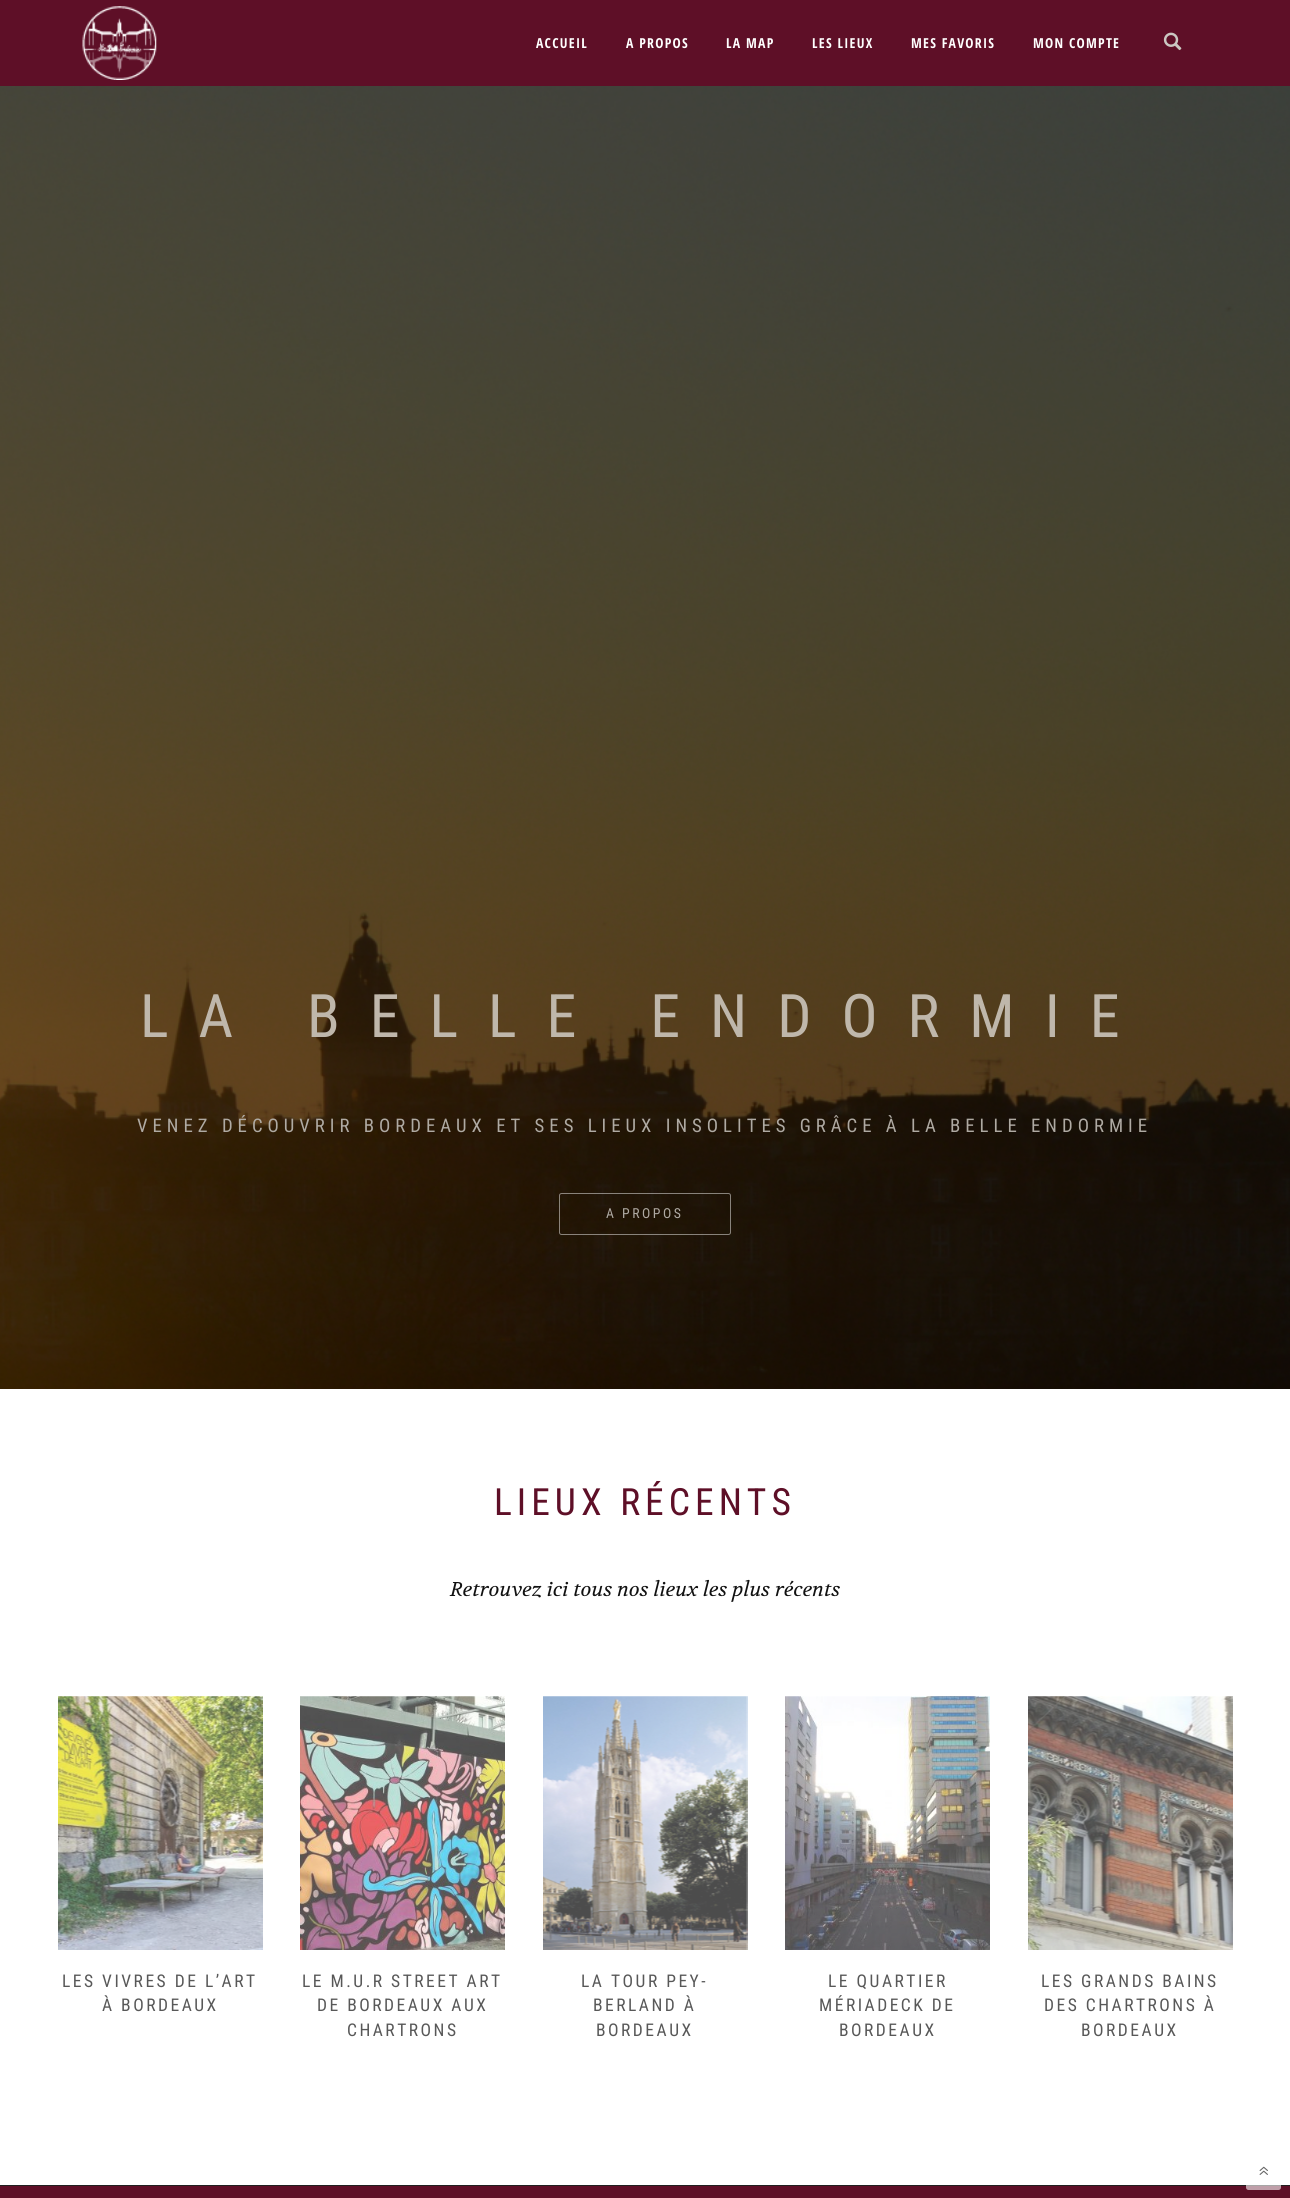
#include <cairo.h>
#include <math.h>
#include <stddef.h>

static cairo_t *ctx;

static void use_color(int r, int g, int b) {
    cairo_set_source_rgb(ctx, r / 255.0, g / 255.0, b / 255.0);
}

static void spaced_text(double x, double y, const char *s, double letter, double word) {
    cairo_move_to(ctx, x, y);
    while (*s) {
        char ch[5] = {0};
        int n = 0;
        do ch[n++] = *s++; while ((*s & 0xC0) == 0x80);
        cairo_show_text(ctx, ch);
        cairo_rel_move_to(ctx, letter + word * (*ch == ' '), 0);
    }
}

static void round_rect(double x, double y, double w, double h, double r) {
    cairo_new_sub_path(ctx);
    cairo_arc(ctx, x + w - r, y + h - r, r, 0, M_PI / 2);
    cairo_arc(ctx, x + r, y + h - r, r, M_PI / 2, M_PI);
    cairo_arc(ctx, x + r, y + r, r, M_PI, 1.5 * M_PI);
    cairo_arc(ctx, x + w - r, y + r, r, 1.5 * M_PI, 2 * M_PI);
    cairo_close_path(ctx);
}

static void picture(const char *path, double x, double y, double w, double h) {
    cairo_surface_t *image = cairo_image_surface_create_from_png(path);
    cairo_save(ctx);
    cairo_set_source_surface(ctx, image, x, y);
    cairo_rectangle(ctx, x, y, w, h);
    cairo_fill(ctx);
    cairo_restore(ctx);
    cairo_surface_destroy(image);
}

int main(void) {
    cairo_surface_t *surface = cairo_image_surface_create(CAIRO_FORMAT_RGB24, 1290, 2198);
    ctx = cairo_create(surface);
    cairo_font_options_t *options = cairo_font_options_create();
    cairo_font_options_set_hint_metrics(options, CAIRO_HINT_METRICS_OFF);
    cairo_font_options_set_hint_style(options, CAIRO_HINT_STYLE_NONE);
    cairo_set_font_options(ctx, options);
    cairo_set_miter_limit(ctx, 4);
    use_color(255, 255, 255);
    cairo_paint(ctx);
    use_color(94, 15, 39);
    cairo_rectangle(ctx, 0, 0, 1290, 86);
    cairo_fill(ctx);
    picture("img1.png", 82, 6, 75, 74);
    cairo_select_font_face(ctx, "Open Sans Condensed", CAIRO_FONT_SLANT_NORMAL, CAIRO_FONT_WEIGHT_BOLD);
    cairo_set_font_size(ctx, 13.75);
    use_color(255, 255, 255);
    spaced_text(536, 48, "ACCUEIL", 1.25, 0);
    spaced_text(626, 48, "A PROPOS", 1.25, 0);
    spaced_text(726, 48, "LA MAP", 1.25, 0);
    spaced_text(812, 48, "LES LIEUX", 1.25, 0);
    spaced_text(911, 48, "MES FAVORIS", 1.25, 0);
    spaced_text(1033, 48, "MON COMPTE", 1.25, 0);
    picture("img2.png", 1163, 32, 19, 19);
    picture("img3.png", 0, 86, 1290, 1303);
    cairo_select_font_face(ctx, "Roboto Condensed", CAIRO_FONT_SLANT_NORMAL, CAIRO_FONT_WEIGHT_NORMAL);
    cairo_set_font_size(ctx, 60);
    use_color(191, 183, 171);
    spaced_text(140, 1037, "LA BELLE ENDORMIE", 30, 0);
    cairo_set_font_size(ctx, 18.75);
    use_color(175, 170, 163);
    spaced_text(137, 1132, "VENEZ DÉCOUVRIR BORDEAUX ET SES LIEUX INSOLITES GRÂCE À LA BELLE ENDORMIE", 5, 0);
    round_rect(559.5, 1193.5, 171, 41, 2);
    cairo_set_source_rgba(ctx, 1, 1, 1, 0.47);
    cairo_set_line_width(ctx, 1);
    cairo_stroke(ctx);
    cairo_set_font_size(ctx, 13.75);
    use_color(175, 170, 163);
    spaced_text(606, 1218, "A PROPOS", 2.5, 0);
    cairo_set_font_size(ctx, 37.5);
    use_color(94, 15, 39);
    spaced_text(494, 1515, "LIEUX RÉCENTS", 5, 0);
    cairo_select_font_face(ctx, "Volkhov", CAIRO_FONT_SLANT_ITALIC, CAIRO_FONT_WEIGHT_NORMAL);
    cairo_set_font_size(ctx, 20);
    use_color(17, 17, 17);
    cairo_move_to(ctx, 450, 1596);
    cairo_show_text(ctx, "Retrouvez ici tous nos lieux les plus récents");
    picture("img4.png", 58, 1696, 205, 254);
    cairo_select_font_face(ctx, "Roboto Condensed", CAIRO_FONT_SLANT_NORMAL, CAIRO_FONT_WEIGHT_NORMAL);
    cairo_set_font_size(ctx, 17.5);
    use_color(88, 88, 88);
    spaced_text(62, 1987, "LES VIVRES DE L’ART", 2.5, 0);
    spaced_text(102, 2011, "À BORDEAUX", 2.5, 0);
    picture("img5.png", 300, 1696, 205, 254);
    spaced_text(302, 1987, "LE M.U.R STREET ART", 2.5, 0);
    spaced_text(317, 2011, "DE BORDEAUX AUX", 2.5, 0);
    spaced_text(347, 2036, "CHARTRONS", 2.5, 0);
    picture("img6.png", 543, 1696, 205, 254);
    spaced_text(581, 1987, "LA TOUR PEY-", 2.5, 0);
    spaced_text(593, 2011, "BERLAND À", 2.5, 0);
    spaced_text(596, 2036, "BORDEAUX", 2.5, 0);
    picture("img7.png", 785, 1696, 205, 254);
    spaced_text(828, 1987, "LE QUARTIER", 2.5, 0);
    spaced_text(819, 2011, "MÉRIADECK DE", 2.5, 0);
    spaced_text(839, 2036, "BORDEAUX", 2.5, 0);
    picture("img8.png", 1028, 1696, 205, 254);
    spaced_text(1041, 1987, "LES GRANDS BAINS", 2.5, 0);
    spaced_text(1044, 2011, "DES CHARTRONS À", 2.5, 0);
    spaced_text(1081, 2036, "BORDEAUX", 2.5, 0);
    use_color(94, 15, 39);
    cairo_rectangle(ctx, 0, 2186, 1290, 12);
    cairo_fill(ctx);
    use_color(32, 32, 32);
    cairo_rectangle(ctx, 0, 2185, 1290, 1);
    cairo_fill(ctx);
    cairo_set_source_rgba(ctx, 1, 1, 1, 0.6);
    round_rect(1246, 2155, 35, 35, 2.5);
    cairo_fill(ctx);
    picture("img9.png", 1259, 2166, 9, 9);
    cairo_surface_write_to_png(surface, "result.png");
    cairo_font_options_destroy(options);
    cairo_destroy(ctx);
    cairo_surface_destroy(surface);
    return 0;
}
